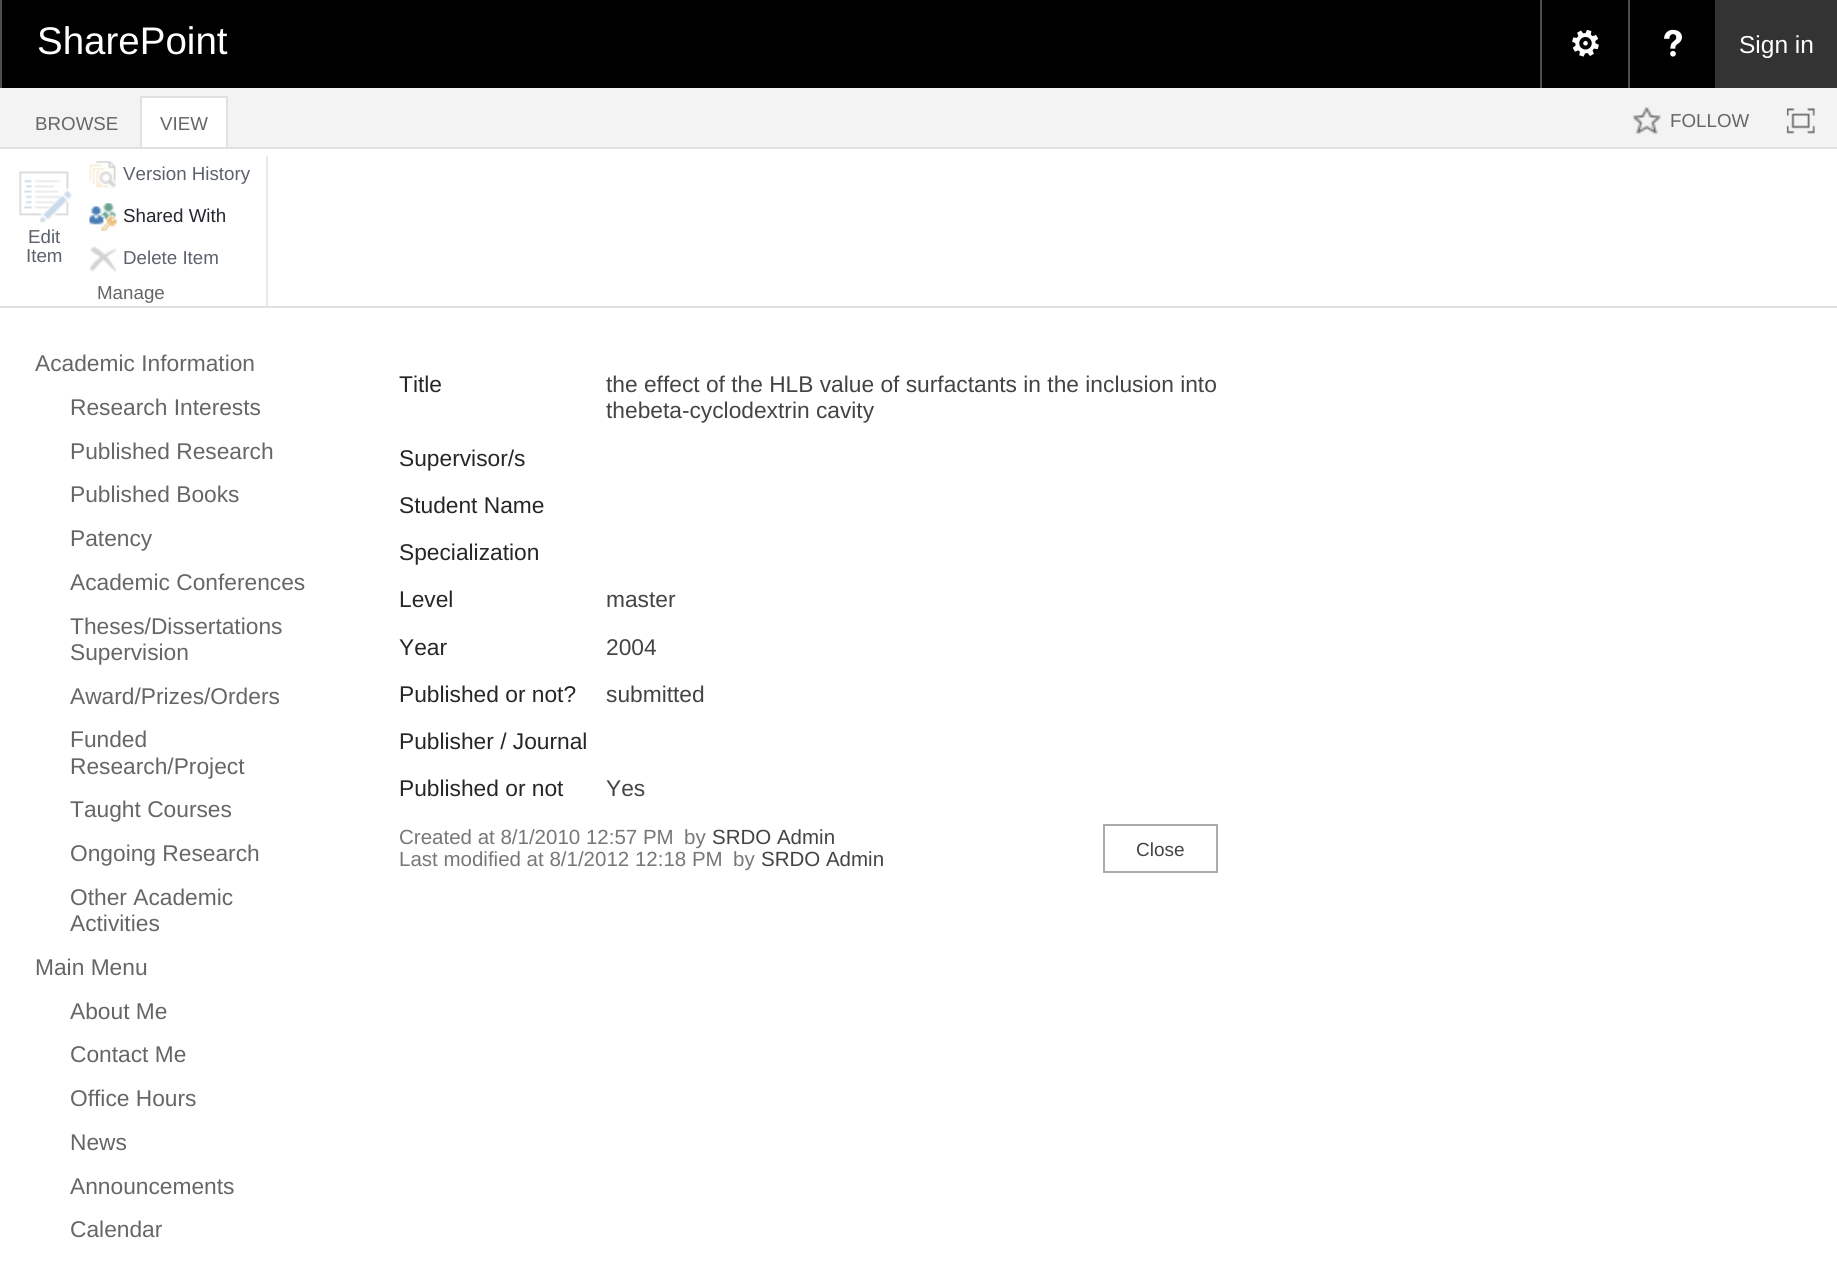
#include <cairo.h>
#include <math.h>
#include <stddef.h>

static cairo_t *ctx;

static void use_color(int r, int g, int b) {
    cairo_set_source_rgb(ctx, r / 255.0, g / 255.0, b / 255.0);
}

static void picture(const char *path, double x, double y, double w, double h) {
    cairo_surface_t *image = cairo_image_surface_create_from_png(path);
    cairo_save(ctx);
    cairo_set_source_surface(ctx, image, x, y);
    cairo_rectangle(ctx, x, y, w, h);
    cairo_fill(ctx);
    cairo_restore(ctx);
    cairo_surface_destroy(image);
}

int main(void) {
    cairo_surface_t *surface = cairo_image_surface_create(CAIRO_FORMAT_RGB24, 1837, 1271);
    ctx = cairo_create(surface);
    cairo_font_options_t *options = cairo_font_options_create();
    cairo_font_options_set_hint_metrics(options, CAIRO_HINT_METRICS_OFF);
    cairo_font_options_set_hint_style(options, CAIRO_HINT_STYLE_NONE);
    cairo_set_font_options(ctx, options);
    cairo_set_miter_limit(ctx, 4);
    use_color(255, 255, 255);
    cairo_paint(ctx);
    use_color(0, 0, 0);
    cairo_rectangle(ctx, 2, 0, 1713, 88);
    cairo_fill(ctx);
    use_color(77, 77, 77);
    cairo_rectangle(ctx, 0, 0, 2, 88);
    cairo_fill(ctx);
    cairo_select_font_face(ctx, "Liberation Sans", CAIRO_FONT_SLANT_NORMAL, CAIRO_FONT_WEIGHT_NORMAL);
    cairo_set_font_size(ctx, 38.5);
    use_color(255, 255, 255);
    cairo_move_to(ctx, 37, 54);
    cairo_show_text(ctx, "SharePoint");
    use_color(77, 77, 77);
    cairo_rectangle(ctx, 1540, 0, 2, 88);
    cairo_fill(ctx);
    picture("img1.png", 1572, 29, 27, 28);
    cairo_rectangle(ctx, 1628, 0, 2, 88);
    cairo_fill(ctx);
    picture("img2.png", 1664, 29, 18, 28);
    use_color(51, 51, 51);
    cairo_rectangle(ctx, 1715, 0, 122, 88);
    cairo_fill(ctx);
    cairo_set_font_size(ctx, 24.5);
    use_color(255, 255, 255);
    cairo_move_to(ctx, 1739, 53);
    cairo_show_text(ctx, "Sign in");
    use_color(243, 243, 243);
    cairo_rectangle(ctx, 0, 88, 1837, 59);
    cairo_fill(ctx);
    use_color(225, 225, 225);
    cairo_rectangle(ctx, 0, 147, 1837, 2);
    cairo_fill(ctx);
    cairo_set_font_size(ctx, 18.75);
    use_color(102, 102, 102);
    cairo_move_to(ctx, 35, 130);
    cairo_show_text(ctx, "BROWSE");
    use_color(255, 255, 255);
    cairo_rectangle(ctx, 142, 98, 84, 49);
    cairo_fill(ctx);
    use_color(225, 225, 225);
    cairo_rectangle(ctx, 140, 96, 88, 2);
    cairo_fill(ctx);
    cairo_rectangle(ctx, 226, 96, 2, 51);
    cairo_fill(ctx);
    cairo_rectangle(ctx, 140, 96, 2, 51);
    cairo_fill(ctx);
    use_color(102, 102, 102);
    cairo_move_to(ctx, 160, 130);
    cairo_show_text(ctx, "VIEW");
    picture("img3.png", 1633, 107, 28, 28);
    cairo_move_to(ctx, 1670, 127);
    cairo_show_text(ctx, "FOLLOW");
    picture("img4.png", 1786, 108, 29, 26);
    use_color(225, 225, 225);
    cairo_rectangle(ctx, 0, 306, 1837, 2);
    cairo_fill(ctx);
    picture("img5.png", 19, 171, 53, 52);
    use_color(91, 98, 108);
    cairo_move_to(ctx, 28, 243);
    cairo_show_text(ctx, "Edit");
    cairo_move_to(ctx, 26, 262);
    cairo_show_text(ctx, "Item");
    picture("img6.png", 89, 161, 27, 27);
    cairo_move_to(ctx, 123, 180);
    cairo_show_text(ctx, "Version History");
    picture("img7.png", 89, 203, 29, 28);
    use_color(35, 39, 44);
    cairo_move_to(ctx, 123, 222);
    cairo_show_text(ctx, "Shared With");
    picture("img8.png", 89, 246, 28, 26);
    use_color(91, 98, 108);
    cairo_move_to(ctx, 123, 264);
    cairo_show_text(ctx, "Delete Item");
    use_color(102, 102, 102);
    cairo_move_to(ctx, 97, 299);
    cairo_show_text(ctx, "Manage");
    use_color(231, 231, 232);
    cairo_rectangle(ctx, 266, 156, 2, 150);
    cairo_fill(ctx);
    cairo_set_font_size(ctx, 22.75);
    use_color(102, 102, 102);
    cairo_move_to(ctx, 35, 371);
    cairo_show_text(ctx, "Academic Information");
    cairo_move_to(ctx, 70, 415);
    cairo_show_text(ctx, "Research Interests");
    cairo_move_to(ctx, 70, 459);
    cairo_show_text(ctx, "Published Research");
    cairo_move_to(ctx, 70, 502);
    cairo_show_text(ctx, "Published Books");
    cairo_move_to(ctx, 70, 546);
    cairo_show_text(ctx, "Patency");
    cairo_move_to(ctx, 70, 590);
    cairo_show_text(ctx, "Academic Conferences");
    cairo_move_to(ctx, 70, 634);
    cairo_show_text(ctx, "Theses/Dissertations");
    cairo_move_to(ctx, 70, 660);
    cairo_show_text(ctx, "Supervision");
    cairo_move_to(ctx, 70, 704);
    cairo_show_text(ctx, "Award/Prizes/Orders");
    cairo_move_to(ctx, 70, 747);
    cairo_show_text(ctx, "Funded");
    cairo_move_to(ctx, 70, 774);
    cairo_show_text(ctx, "Research/Project");
    cairo_move_to(ctx, 70, 817);
    cairo_show_text(ctx, "Taught Courses");
    cairo_move_to(ctx, 70, 861);
    cairo_show_text(ctx, "Ongoing Research");
    cairo_move_to(ctx, 70, 905);
    cairo_show_text(ctx, "Other Academic");
    cairo_move_to(ctx, 70, 931);
    cairo_show_text(ctx, "Activities");
    cairo_move_to(ctx, 35, 975);
    cairo_show_text(ctx, "Main Menu");
    cairo_move_to(ctx, 70, 1019);
    cairo_show_text(ctx, "About Me");
    cairo_move_to(ctx, 70, 1062);
    cairo_show_text(ctx, "Contact Me");
    cairo_move_to(ctx, 70, 1106);
    cairo_show_text(ctx, "Office Hours");
    cairo_move_to(ctx, 70, 1150);
    cairo_show_text(ctx, "News");
    cairo_move_to(ctx, 70, 1194);
    cairo_show_text(ctx, "Announcements");
    cairo_move_to(ctx, 70, 1237);
    cairo_show_text(ctx, "Calendar");
    use_color(38, 38, 38);
    cairo_move_to(ctx, 399, 392);
    cairo_show_text(ctx, "Title");
    use_color(68, 68, 68);
    cairo_move_to(ctx, 606, 392);
    cairo_show_text(ctx, "the effect of the HLB value of surfactants in the inclusion into");
    cairo_move_to(ctx, 606, 418);
    cairo_show_text(ctx, "thebeta-cyclodextrin cavity");
    use_color(38, 38, 38);
    cairo_move_to(ctx, 399, 466);
    cairo_show_text(ctx, "Supervisor/s");
    cairo_move_to(ctx, 399, 513);
    cairo_show_text(ctx, "Student Name");
    cairo_move_to(ctx, 399, 560);
    cairo_show_text(ctx, "Specialization");
    cairo_move_to(ctx, 399, 607);
    cairo_show_text(ctx, "Level");
    use_color(68, 68, 68);
    cairo_move_to(ctx, 606, 607);
    cairo_show_text(ctx, "master");
    use_color(38, 38, 38);
    cairo_move_to(ctx, 399, 655);
    cairo_show_text(ctx, "Year");
    use_color(68, 68, 68);
    cairo_move_to(ctx, 606, 655);
    cairo_show_text(ctx, "2004");
    use_color(38, 38, 38);
    cairo_move_to(ctx, 399, 702);
    cairo_show_text(ctx, "Published or not?");
    use_color(68, 68, 68);
    cairo_move_to(ctx, 606, 702);
    cairo_show_text(ctx, "submitted");
    use_color(38, 38, 38);
    cairo_move_to(ctx, 399, 749);
    cairo_show_text(ctx, "Publisher / Journal");
    cairo_move_to(ctx, 399, 796);
    cairo_show_text(ctx, "Published or not");
    use_color(68, 68, 68);
    cairo_move_to(ctx, 606, 796);
    cairo_show_text(ctx, "Yes");
    cairo_set_font_size(ctx, 20.5);
    use_color(119, 119, 119);
    cairo_move_to(ctx, 399, 844);
    cairo_show_text(ctx, "Created at 8/1/2010 12:57 PM");
    cairo_move_to(ctx, 684, 844);
    cairo_show_text(ctx, "by");
    use_color(68, 68, 68);
    cairo_move_to(ctx, 712, 844);
    cairo_show_text(ctx, "SRDO Admin");
    use_color(119, 119, 119);
    cairo_move_to(ctx, 399, 866);
    cairo_show_text(ctx, "Last modified at 8/1/2012 12:18 PM");
    cairo_move_to(ctx, 733, 866);
    cairo_show_text(ctx, "by");
    use_color(68, 68, 68);
    cairo_move_to(ctx, 761, 866);
    cairo_show_text(ctx, "SRDO Admin");
    cairo_rectangle(ctx, 1104, 825, 113, 47);
    use_color(171, 171, 171);
    cairo_stroke(ctx);
    cairo_set_font_size(ctx, 19);
    use_color(68, 68, 68);
    cairo_move_to(ctx, 1136, 856);
    cairo_show_text(ctx, "Close");
    cairo_surface_write_to_png(surface, "result.png");
    cairo_font_options_destroy(options);
    cairo_destroy(ctx);
    cairo_surface_destroy(surface);
    return 0;
}
